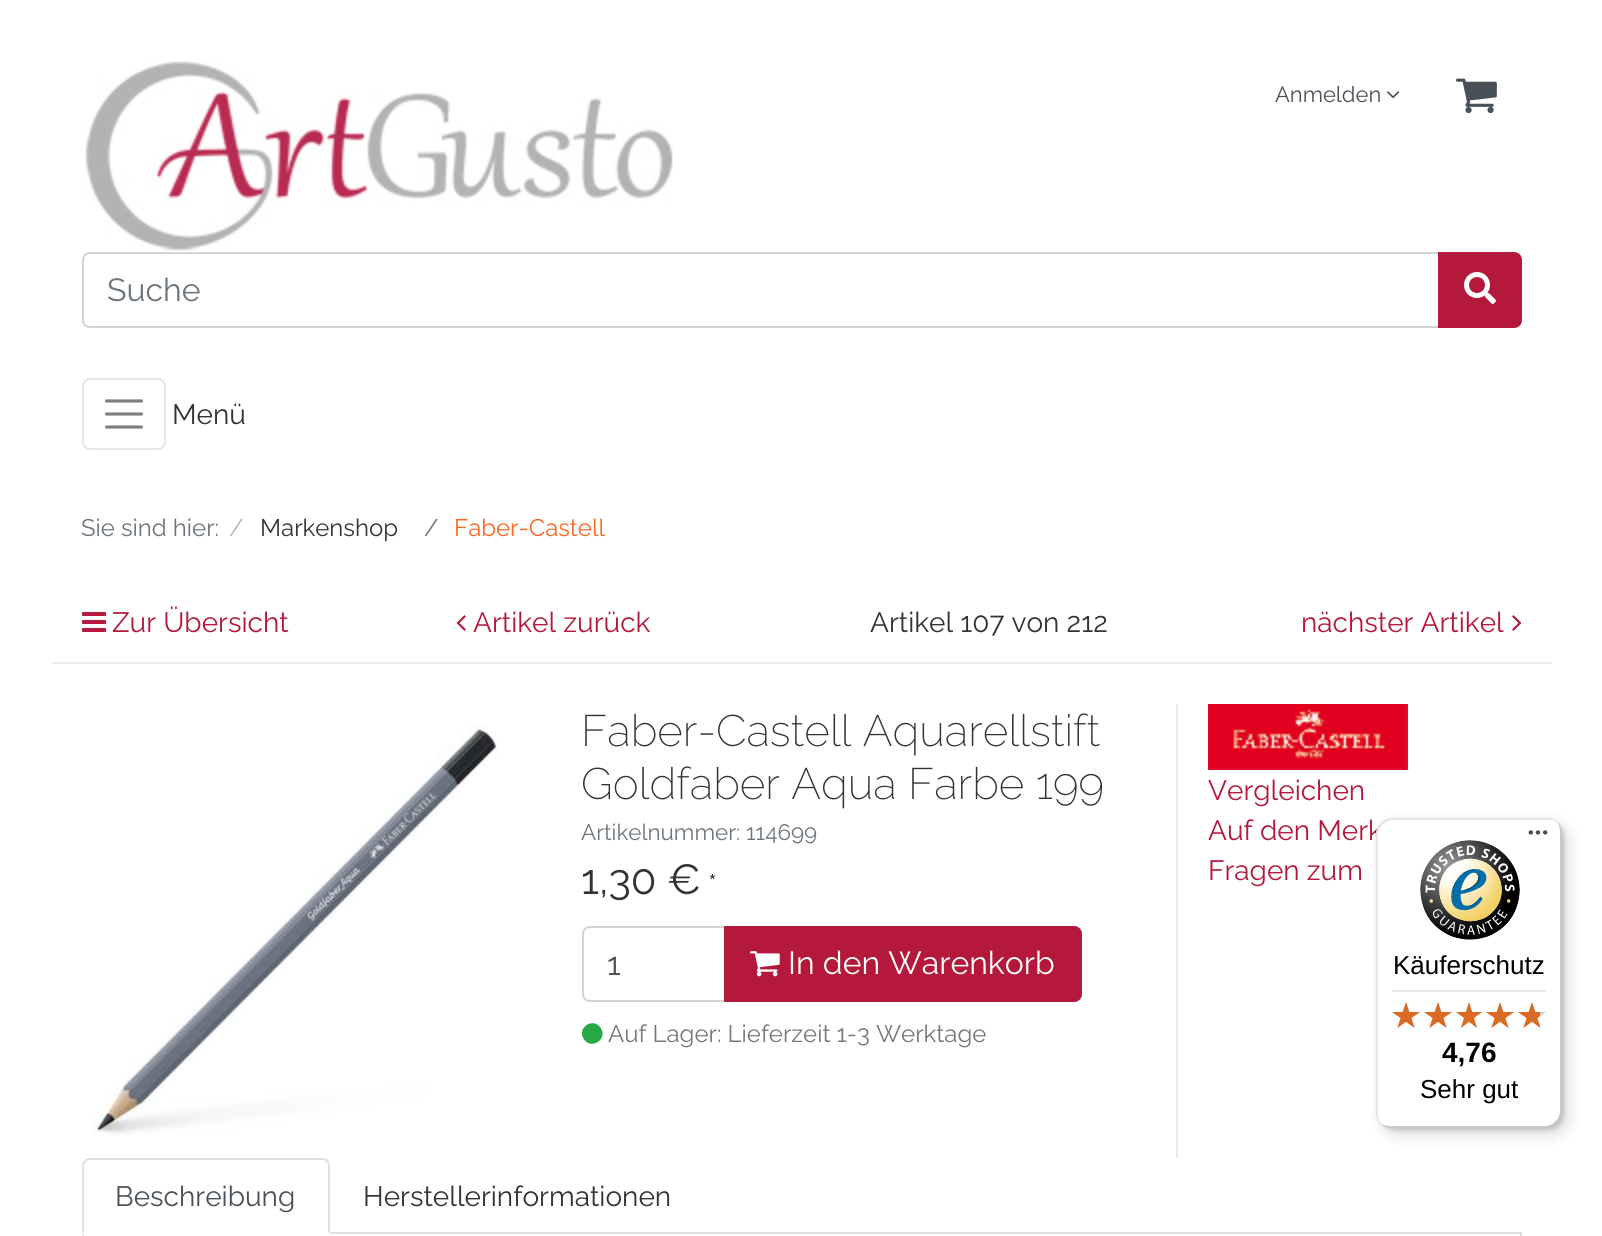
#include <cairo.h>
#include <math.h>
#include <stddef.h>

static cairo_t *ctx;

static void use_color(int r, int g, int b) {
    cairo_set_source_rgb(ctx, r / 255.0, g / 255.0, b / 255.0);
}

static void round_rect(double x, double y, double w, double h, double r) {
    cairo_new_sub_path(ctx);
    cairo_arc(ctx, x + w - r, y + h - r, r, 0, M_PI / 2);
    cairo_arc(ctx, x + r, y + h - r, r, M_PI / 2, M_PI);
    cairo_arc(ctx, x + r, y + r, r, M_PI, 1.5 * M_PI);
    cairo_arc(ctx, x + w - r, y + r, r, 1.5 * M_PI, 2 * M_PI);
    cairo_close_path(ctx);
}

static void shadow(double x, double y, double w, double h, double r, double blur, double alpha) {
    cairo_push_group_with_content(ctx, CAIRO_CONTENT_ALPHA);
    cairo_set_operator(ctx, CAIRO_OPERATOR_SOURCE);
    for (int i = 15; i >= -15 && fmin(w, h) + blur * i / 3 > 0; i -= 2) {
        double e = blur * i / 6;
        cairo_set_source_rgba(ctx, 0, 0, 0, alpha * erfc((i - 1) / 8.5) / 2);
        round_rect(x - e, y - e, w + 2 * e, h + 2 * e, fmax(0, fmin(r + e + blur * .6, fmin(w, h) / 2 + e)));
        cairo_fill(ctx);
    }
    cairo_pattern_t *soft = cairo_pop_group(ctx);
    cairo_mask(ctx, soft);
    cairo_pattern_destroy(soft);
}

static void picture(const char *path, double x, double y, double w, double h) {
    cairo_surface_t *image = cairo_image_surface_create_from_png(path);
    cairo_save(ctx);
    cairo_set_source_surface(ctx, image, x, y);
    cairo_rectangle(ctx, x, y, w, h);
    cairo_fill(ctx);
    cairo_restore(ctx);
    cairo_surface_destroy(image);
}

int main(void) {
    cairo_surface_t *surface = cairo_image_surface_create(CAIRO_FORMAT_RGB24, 1602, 1236);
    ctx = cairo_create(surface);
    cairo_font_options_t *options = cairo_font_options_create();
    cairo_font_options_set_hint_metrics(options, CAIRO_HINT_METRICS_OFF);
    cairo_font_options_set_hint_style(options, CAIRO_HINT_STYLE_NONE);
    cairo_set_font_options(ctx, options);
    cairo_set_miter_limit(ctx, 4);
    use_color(255, 255, 255);
    cairo_paint(ctx);
    picture("img1.png", 85, 61, 588, 190);
    cairo_select_font_face(ctx, "Raleway", CAIRO_FONT_SLANT_NORMAL, CAIRO_FONT_WEIGHT_NORMAL);
    cairo_set_font_size(ctx, 22);
    use_color(73, 80, 87);
    cairo_move_to(ctx, 1275, 102);
    cairo_show_text(ctx, "Anmelden");
    picture("img2.png", 1387, 91, 13, 8);
    picture("img3.png", 1456, 78, 41, 36);
    cairo_new_path(ctx);
    cairo_move_to(ctx, 90, 253);
    cairo_line_to(ctx, 1439, 253);
    cairo_line_to(ctx, 1439, 327);
    cairo_line_to(ctx, 90, 327);
    cairo_curve_to(ctx, 86, 327, 83, 324, 83, 320);
    cairo_line_to(ctx, 83, 260);
    cairo_curve_to(ctx, 83, 256, 86, 253, 90, 253);
    cairo_close_path(ctx);
    use_color(206, 212, 218);
    cairo_stroke(ctx);
    cairo_set_font_size(ctx, 32);
    use_color(108, 117, 125);
    cairo_move_to(ctx, 107, 301);
    cairo_show_text(ctx, "Suche");
    use_color(180, 25, 59);
    cairo_new_path(ctx);
    cairo_move_to(ctx, 1439, 253);
    cairo_line_to(ctx, 1514, 253);
    cairo_curve_to(ctx, 1518, 253, 1521, 256, 1521, 260);
    cairo_line_to(ctx, 1521, 320);
    cairo_curve_to(ctx, 1521, 324, 1518, 327, 1514, 327);
    cairo_line_to(ctx, 1439, 327);
    cairo_close_path(ctx);
    cairo_fill_preserve(ctx);
    cairo_stroke(ctx);
    picture("img4.png", 1464, 272, 32, 32);
    round_rect(83, 379, 82, 70, 7);
    use_color(230, 230, 230);
    cairo_stroke(ctx);
    cairo_new_path(ctx);
    cairo_move_to(ctx, 106.5, 401);
    cairo_line_to(ctx, 141.5, 401);
    cairo_move_to(ctx, 106.5, 414);
    cairo_line_to(ctx, 141.5, 414);
    cairo_move_to(ctx, 106.5, 427);
    cairo_line_to(ctx, 141.5, 427);
    use_color(128, 128, 128);
    cairo_set_line_width(ctx, 3.2);
    cairo_set_line_cap(ctx, CAIRO_LINE_CAP_ROUND);
    cairo_stroke(ctx);
    cairo_set_font_size(ctx, 28);
    use_color(51, 51, 51);
    cairo_move_to(ctx, 172, 424);
    cairo_show_text(ctx, "Menü");
    cairo_set_font_size(ctx, 24);
    use_color(108, 117, 125);
    cairo_move_to(ctx, 81, 536);
    cairo_show_text(ctx, "Sie sind hier:");
    use_color(173, 181, 189);
    cairo_move_to(ctx, 229, 536);
    cairo_show_text(ctx, "/");
    use_color(51, 51, 51);
    cairo_move_to(ctx, 260, 536);
    cairo_show_text(ctx, "Markenshop");
    use_color(108, 117, 125);
    cairo_move_to(ctx, 424, 536);
    cairo_show_text(ctx, "/");
    use_color(252, 102, 33);
    cairo_move_to(ctx, 454, 536);
    cairo_show_text(ctx, "Faber-Castell");
    use_color(233, 236, 239);
    cairo_rectangle(ctx, 52, 662, 1500, 2);
    cairo_fill(ctx);
    picture("img5.png", 82, 612, 24, 20);
    cairo_set_font_size(ctx, 28);
    use_color(180, 25, 59);
    cairo_move_to(ctx, 112, 632);
    cairo_show_text(ctx, "Zur Übersicht");
    picture("img6.png", 456, 615, 10, 16);
    cairo_move_to(ctx, 473, 632);
    cairo_show_text(ctx, "Artikel zurück");
    use_color(51, 51, 51);
    cairo_move_to(ctx, 870, 632);
    cairo_show_text(ctx, "Artikel 107 von 212");
    use_color(180, 25, 59);
    cairo_move_to(ctx, 1301, 632);
    cairo_show_text(ctx, "nächster Artikel");
    picture("img7.png", 1512, 615, 10, 16);
    picture("img8.png", 92, 724, 406, 411);
    cairo_select_font_face(ctx, "Raleway ExtraLight", CAIRO_FONT_SLANT_NORMAL, CAIRO_FONT_WEIGHT_NORMAL);
    cairo_set_font_size(ctx, 44);
    use_color(51, 51, 51);
    cairo_move_to(ctx, 581, 746);
    cairo_show_text(ctx, "Faber-Castell Aquarellstift");
    cairo_move_to(ctx, 581, 799);
    cairo_show_text(ctx, "Goldfaber Aqua Farbe 199");
    cairo_select_font_face(ctx, "Raleway", CAIRO_FONT_SLANT_NORMAL, CAIRO_FONT_WEIGHT_NORMAL);
    cairo_set_font_size(ctx, 22.4);
    use_color(108, 117, 125);
    cairo_move_to(ctx, 581, 840);
    cairo_show_text(ctx, "Artikelnummer: 114699");
    cairo_set_font_size(ctx, 42);
    use_color(51, 51, 51);
    cairo_move_to(ctx, 581, 894);
    cairo_show_text(ctx, "1,30 €");
    cairo_set_font_size(ctx, 28);
    cairo_move_to(ctx, 708, 894);
    cairo_show_text(ctx, "*");
    cairo_new_path(ctx);
    cairo_move_to(ctx, 590, 927);
    cairo_line_to(ctx, 725, 927);
    cairo_line_to(ctx, 725, 1001);
    cairo_line_to(ctx, 590, 1001);
    cairo_curve_to(ctx, 586, 1001, 583, 998, 583, 994);
    cairo_line_to(ctx, 583, 934);
    cairo_curve_to(ctx, 583, 930, 586, 927, 590, 927);
    cairo_close_path(ctx);
    use_color(206, 212, 218);
    cairo_set_line_width(ctx, 2);
    cairo_set_line_cap(ctx, CAIRO_LINE_CAP_BUTT);
    cairo_stroke(ctx);
    cairo_set_font_size(ctx, 32);
    use_color(73, 80, 87);
    cairo_move_to(ctx, 607, 975);
    cairo_show_text(ctx, "1");
    use_color(180, 25, 59);
    cairo_new_path(ctx);
    cairo_move_to(ctx, 725, 927);
    cairo_line_to(ctx, 1074, 927);
    cairo_curve_to(ctx, 1078, 927, 1081, 930, 1081, 934);
    cairo_line_to(ctx, 1081, 994);
    cairo_curve_to(ctx, 1081, 998, 1078, 1001, 1074, 1001);
    cairo_line_to(ctx, 725, 1001);
    cairo_close_path(ctx);
    cairo_fill_preserve(ctx);
    cairo_stroke(ctx);
    picture("img9.png", 750, 951, 30, 26);
    use_color(255, 255, 255);
    cairo_move_to(ctx, 788, 974);
    cairo_show_text(ctx, "In den Warenkorb");
    use_color(40, 167, 69);
    cairo_new_path(ctx);
    cairo_move_to(ctx, 601, 1028.5);
    cairo_curve_to(ctx, 608, 1040, 590, 1050.5, 583.5, 1038.5);
    cairo_curve_to(ctx, 576.5, 1027, 594.5, 1016.5, 601, 1028.5);
    cairo_close_path(ctx);
    cairo_fill(ctx);
    cairo_set_font_size(ctx, 24);
    use_color(119, 119, 119);
    cairo_move_to(ctx, 608, 1042);
    cairo_show_text(ctx, "Auf Lager: Lieferzeit 1-3 Werktage");
    use_color(233, 236, 239);
    cairo_rectangle(ctx, 1176, 704, 2, 454);
    cairo_fill(ctx);
    picture("img10.png", 1208, 704, 200, 66);
    cairo_set_font_size(ctx, 28);
    use_color(180, 25, 59);
    cairo_move_to(ctx, 1208, 800);
    cairo_show_text(ctx, "Vergleichen");
    cairo_move_to(ctx, 1208, 840);
    cairo_show_text(ctx, "Auf den Merk");
    cairo_move_to(ctx, 1208, 880);
    cairo_show_text(ctx, "Fragen zum");
    use_color(222, 226, 230);
    cairo_rectangle(ctx, 330, 1232, 1192, 2);
    cairo_fill(ctx);
    cairo_new_path(ctx);
    cairo_move_to(ctx, 90, 1158);
    cairo_curve_to(ctx, 88, 1158, 86, 1159, 84, 1160);
    cairo_line_to(ctx, 86, 1162);
    cairo_curve_to(ctx, 87, 1161, 88, 1160, 90, 1160);
    cairo_line_to(ctx, 322, 1160);
    cairo_curve_to(ctx, 324, 1160, 325, 1161, 326, 1162);
    cairo_line_to(ctx, 328, 1160);
    cairo_curve_to(ctx, 326, 1159, 324, 1158, 322, 1158);
    cairo_close_path(ctx);
    cairo_fill(ctx);
    cairo_new_path(ctx);
    cairo_move_to(ctx, 330, 1234);
    cairo_line_to(ctx, 330, 1166);
    cairo_curve_to(ctx, 330, 1164, 329, 1162, 328, 1160);
    cairo_line_to(ctx, 326, 1162);
    cairo_curve_to(ctx, 327, 1163, 328, 1164, 328, 1166);
    cairo_line_to(ctx, 328, 1232);
    cairo_close_path(ctx);
    cairo_fill(ctx);
    use_color(255, 255, 255);
    cairo_new_path(ctx);
    cairo_move_to(ctx, 330, 1234);
    cairo_line_to(ctx, 328, 1232);
    cairo_line_to(ctx, 84, 1232);
    cairo_line_to(ctx, 82, 1234);
    cairo_close_path(ctx);
    cairo_fill(ctx);
    use_color(222, 226, 230);
    cairo_new_path(ctx);
    cairo_move_to(ctx, 82, 1234);
    cairo_line_to(ctx, 84, 1232);
    cairo_line_to(ctx, 84, 1166);
    cairo_curve_to(ctx, 84, 1164, 85, 1163, 86, 1162);
    cairo_line_to(ctx, 84, 1160);
    cairo_curve_to(ctx, 83, 1162, 82, 1164, 82, 1166);
    cairo_close_path(ctx);
    cairo_fill(ctx);
    use_color(73, 80, 87);
    cairo_move_to(ctx, 115, 1206);
    cairo_show_text(ctx, "Beschreibung");
    use_color(51, 51, 51);
    cairo_move_to(ctx, 363, 1206);
    cairo_show_text(ctx, "Herstellerinformationen");
    use_color(221, 221, 221);
    cairo_rectangle(ctx, 1520, 1234, 2, 2);
    cairo_fill(ctx);
    cairo_rectangle(ctx, 82, 1234, 2, 2);
    cairo_fill(ctx);
    use_color(0, 0, 0);
    shadow(1382, 824, 186, 310, 16, 8, 0.15);
    shadow(1378, 820, 186, 310, 16, 2, 0.15);
    use_color(255, 255, 255);
    round_rect(1376, 818, 186, 310, 16);
    cairo_fill(ctx);
    cairo_set_source_rgba(ctx, 0, 0, 0, 0.1);
    cairo_new_path(ctx);
    cairo_move_to(ctx, 1394, 820);
    cairo_line_to(ctx, 1548, 820);
    cairo_curve_to(ctx, 1552, 820, 1555, 821, 1558, 823);
    cairo_curve_to(ctx, 1555, 820, 1551, 818, 1546, 818);
    cairo_line_to(ctx, 1392, 818);
    cairo_curve_to(ctx, 1383, 818, 1376, 825, 1376, 834);
    cairo_line_to(ctx, 1376, 1112);
    cairo_curve_to(ctx, 1376, 1117, 1378, 1121, 1381, 1124);
    cairo_curve_to(ctx, 1379, 1121, 1378, 1118, 1378, 1114);
    cairo_line_to(ctx, 1378, 836);
    cairo_curve_to(ctx, 1378, 827, 1385, 820, 1394, 820);
    cairo_close_path(ctx);
    cairo_fill(ctx);
    cairo_set_source_rgba(ctx, 0, 0, 0, 0.2);
    cairo_new_path(ctx);
    cairo_move_to(ctx, 1380, 1123);
    cairo_curve_to(ctx, 1383, 1126, 1387, 1128, 1392, 1128);
    cairo_line_to(ctx, 1546, 1128);
    cairo_curve_to(ctx, 1555, 1128, 1562, 1121, 1562, 1112);
    cairo_line_to(ctx, 1562, 834);
    cairo_curve_to(ctx, 1562, 829, 1560, 825, 1557, 822);
    cairo_curve_to(ctx, 1559, 825, 1560, 828, 1560, 832);
    cairo_line_to(ctx, 1560, 1110);
    cairo_curve_to(ctx, 1560, 1119, 1553, 1126, 1544, 1126);
    cairo_line_to(ctx, 1390, 1126);
    cairo_curve_to(ctx, 1386, 1126, 1383, 1125, 1380, 1123);
    cairo_close_path(ctx);
    cairo_fill(ctx);
    cairo_set_source_rgba(ctx, 0.196, 0.196, 0.196, 0.2);
    cairo_new_path(ctx);
    cairo_move_to(ctx, 1381, 1123);
    cairo_curve_to(ctx, 1384, 1126, 1388, 1128, 1392, 1128);
    cairo_line_to(ctx, 1546, 1128);
    cairo_curve_to(ctx, 1555, 1128, 1562, 1121, 1562, 1112);
    cairo_line_to(ctx, 1562, 834);
    cairo_curve_to(ctx, 1562, 830, 1560, 826, 1557, 823);
    cairo_curve_to(ctx, 1560, 826, 1561, 829, 1561, 833);
    cairo_line_to(ctx, 1561, 1111);
    cairo_curve_to(ctx, 1561, 1120, 1554, 1127, 1545, 1127);
    cairo_line_to(ctx, 1391, 1127);
    cairo_curve_to(ctx, 1387, 1127, 1384, 1126, 1381, 1123);
    cairo_close_path(ctx);
    cairo_fill(ctx);
    cairo_set_source_rgba(ctx, 1, 1, 1, 0.3);
    cairo_new_path(ctx);
    cairo_move_to(ctx, 1381, 1123);
    cairo_curve_to(ctx, 1384, 1126, 1388, 1128, 1392, 1128);
    cairo_line_to(ctx, 1546, 1128);
    cairo_curve_to(ctx, 1555, 1128, 1562, 1121, 1562, 1112);
    cairo_line_to(ctx, 1562, 834);
    cairo_curve_to(ctx, 1562, 830, 1560, 826, 1557, 823);
    cairo_curve_to(ctx, 1560, 826, 1561, 829, 1561, 833);
    cairo_line_to(ctx, 1561, 1111);
    cairo_curve_to(ctx, 1561, 1120, 1554, 1127, 1545, 1127);
    cairo_line_to(ctx, 1391, 1127);
    cairo_curve_to(ctx, 1387, 1127, 1384, 1126, 1381, 1123);
    cairo_close_path(ctx);
    cairo_fill(ctx);
    picture("img11.png", 1528, 830, 20, 5);
    picture("img12.png", 1420, 840, 100, 100);
    cairo_select_font_face(ctx, "Liberation Sans", CAIRO_FONT_SLANT_NORMAL, CAIRO_FONT_WEIGHT_NORMAL);
    cairo_set_font_size(ctx, 26);
    use_color(0, 0, 0);
    cairo_move_to(ctx, 1393, 974);
    cairo_show_text(ctx, "Käuferschutz");
    use_color(229, 229, 229);
    cairo_rectangle(ctx, 1392, 990, 154, 2);
    cairo_fill(ctx);
    picture("img13.png", 1392, 1002, 28, 26);
    picture("img13.png", 1424, 1002, 28, 26);
    picture("img14.png", 1456, 1002, 26, 26);
    picture("img13.png", 1486, 1002, 28, 26);
    picture("img13.png", 1518, 1002, 28, 26);
    picture("img15.png", 1392, 1002, 28, 26);
    picture("img15.png", 1424, 1002, 28, 26);
    picture("img16.png", 1456, 1002, 26, 26);
    picture("img15.png", 1486, 1002, 28, 26);
    picture("img17.png", 1518, 1002, 22, 26);
    cairo_select_font_face(ctx, "Liberation Sans", CAIRO_FONT_SLANT_NORMAL, CAIRO_FONT_WEIGHT_BOLD);
    cairo_set_font_size(ctx, 28);
    use_color(0, 0, 0);
    cairo_move_to(ctx, 1442, 1062);
    cairo_show_text(ctx, "4,76");
    cairo_select_font_face(ctx, "Liberation Sans", CAIRO_FONT_SLANT_NORMAL, CAIRO_FONT_WEIGHT_NORMAL);
    cairo_set_font_size(ctx, 26);
    cairo_move_to(ctx, 1420, 1098);
    cairo_show_text(ctx, "Sehr gut");
    cairo_surface_write_to_png(surface, "result.png");
    cairo_font_options_destroy(options);
    cairo_destroy(ctx);
    cairo_surface_destroy(surface);
    return 0;
}
